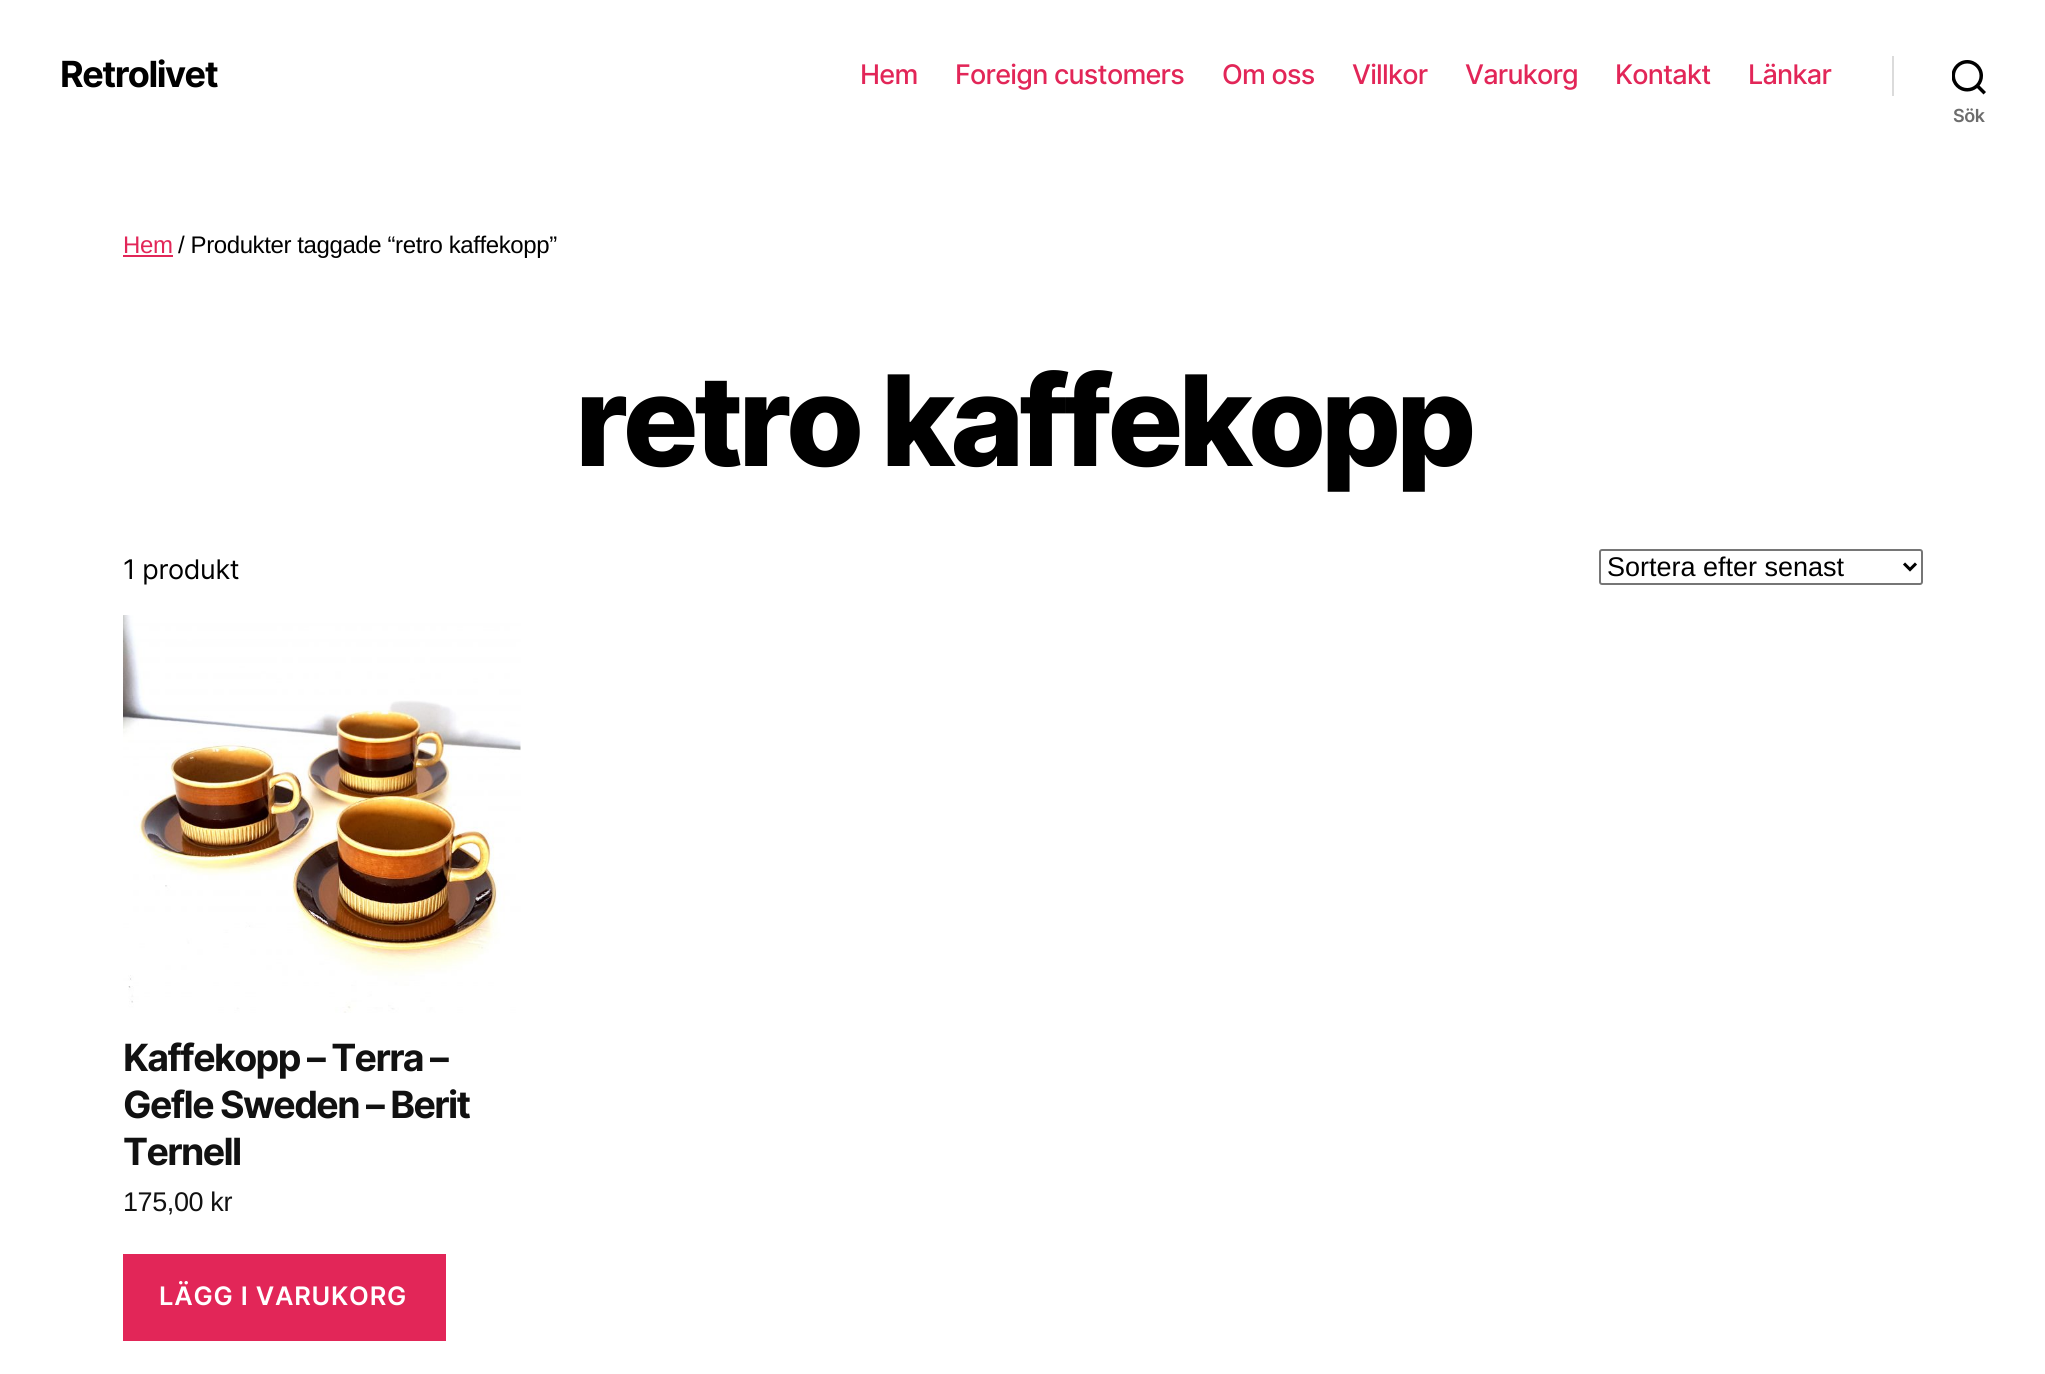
#include <cairo.h>
#include <math.h>
#include <stddef.h>

static cairo_t *ctx;

static void use_color(int r, int g, int b) {
    cairo_set_source_rgb(ctx, r / 255.0, g / 255.0, b / 255.0);
}

static void spaced_text(double x, double y, const char *s, double letter, double word) {
    cairo_move_to(ctx, x, y);
    while (*s) {
        char ch[5] = {0};
        int n = 0;
        do ch[n++] = *s++; while ((*s & 0xC0) == 0x80);
        cairo_show_text(ctx, ch);
        cairo_rel_move_to(ctx, letter + word * (*ch == ' '), 0);
    }
}

static void round_rect(double x, double y, double w, double h, double r) {
    cairo_new_sub_path(ctx);
    cairo_arc(ctx, x + w - r, y + h - r, r, 0, M_PI / 2);
    cairo_arc(ctx, x + r, y + h - r, r, M_PI / 2, M_PI);
    cairo_arc(ctx, x + r, y + r, r, M_PI, 1.5 * M_PI);
    cairo_arc(ctx, x + w - r, y + r, r, 1.5 * M_PI, 2 * M_PI);
    cairo_close_path(ctx);
}

static void picture(const char *path, double x, double y, double w, double h) {
    cairo_surface_t *image = cairo_image_surface_create_from_png(path);
    cairo_save(ctx);
    cairo_set_source_surface(ctx, image, x, y);
    cairo_rectangle(ctx, x, y, w, h);
    cairo_fill(ctx);
    cairo_restore(ctx);
    cairo_surface_destroy(image);
}

int main(void) {
    cairo_surface_t *surface = cairo_image_surface_create(CAIRO_FORMAT_RGB24, 2045, 1374);
    ctx = cairo_create(surface);
    cairo_font_options_t *options = cairo_font_options_create();
    cairo_font_options_set_hint_metrics(options, CAIRO_HINT_METRICS_OFF);
    cairo_font_options_set_hint_style(options, CAIRO_HINT_STYLE_NONE);
    cairo_set_font_options(ctx, options);
    cairo_set_miter_limit(ctx, 4);
    use_color(255, 255, 255);
    cairo_paint(ctx);
    cairo_select_font_face(ctx, "Inter", CAIRO_FONT_SLANT_NORMAL, CAIRO_FONT_WEIGHT_BOLD);
    cairo_set_font_size(ctx, 36);
    use_color(0, 0, 0);
    spaced_text(60, 87, "Retrolivet", -1.5, 0);
    cairo_select_font_face(ctx, "Inter Medium", CAIRO_FONT_SLANT_NORMAL, CAIRO_FONT_WEIGHT_NORMAL);
    cairo_set_font_size(ctx, 27);
    use_color(226, 38, 88);
    spaced_text(860, 84, "Hem", -0.75, 0);
    spaced_text(955, 84, "Foreign customers", -0.75, 0);
    spaced_text(1222, 84, "Om oss", -0.75, 0);
    spaced_text(1352, 84, "Villkor", -0.75, 0);
    spaced_text(1465, 84, "Varukorg", -0.75, 0);
    spaced_text(1615, 84, "Kontakt", -0.75, 0);
    spaced_text(1748, 84, "Länkar", -0.75, 0);
    use_color(219, 219, 219);
    cairo_rectangle(ctx, 1892, 56, 2, 40);
    cairo_fill(ctx);
    picture("img1.png", 1952, 60, 34, 35);
    cairo_select_font_face(ctx, "Inter SemiBold", CAIRO_FONT_SLANT_NORMAL, CAIRO_FONT_WEIGHT_NORMAL);
    cairo_set_font_size(ctx, 18);
    use_color(109, 109, 109);
    spaced_text(1953, 122, "Sök", -0.4, 0);
    cairo_select_font_face(ctx, "Liberation Sans", CAIRO_FONT_SLANT_NORMAL, CAIRO_FONT_WEIGHT_NORMAL);
    cairo_set_font_size(ctx, 24);
    use_color(226, 38, 88);
    spaced_text(123, 253, "Hem", -0.4, 0);
    cairo_rectangle(ctx, 123, 255, 50, 2);
    cairo_fill(ctx);
    use_color(0, 0, 0);
    spaced_text(178, 253, "/ Produkter taggade “retro kaffekopp”", -0.4, 0);
    cairo_select_font_face(ctx, "Inter ExtraBold", CAIRO_FONT_SLANT_NORMAL, CAIRO_FONT_WEIGHT_NORMAL);
    cairo_set_font_size(ctx, 126);
    spaced_text(575, 466, "retro kaffekopp", -5.25, 0);
    cairo_select_font_face(ctx, "Inter", CAIRO_FONT_SLANT_NORMAL, CAIRO_FONT_WEIGHT_NORMAL);
    cairo_set_font_size(ctx, 27);
    spaced_text(123, 579, "1 produkt", -0.4, 0);
    round_rect(1600, 550, 322, 34, 2);
    use_color(118, 118, 118);
    cairo_stroke(ctx);
    cairo_new_path(ctx);
    cairo_move_to(ctx, 1904, 563.5);
    cairo_line_to(ctx, 1910, 569.5);
    cairo_line_to(ctx, 1916, 563.5);
    use_color(0, 0, 0);
    cairo_set_line_width(ctx, 3);
    cairo_stroke(ctx);
    cairo_select_font_face(ctx, "Liberation Sans", CAIRO_FONT_SLANT_NORMAL, CAIRO_FONT_WEIGHT_NORMAL);
    cairo_move_to(ctx, 1607, 576);
    cairo_show_text(ctx, "Sortera efter senast");
    picture("img2.png", 123, 615, 398, 398);
    cairo_select_font_face(ctx, "Inter", CAIRO_FONT_SLANT_NORMAL, CAIRO_FONT_WEIGHT_BOLD);
    cairo_set_font_size(ctx, 37.5);
    use_color(17, 17, 17);
    spaced_text(123, 1071, "Kaffekopp – Terra –", -1.6, 0);
    spaced_text(123, 1118, "Gefle Sweden – Berit", -1.6, 0);
    spaced_text(123, 1165, "Ternell", -1.6, 0);
    cairo_select_font_face(ctx, "Liberation Sans", CAIRO_FONT_SLANT_NORMAL, CAIRO_FONT_WEIGHT_NORMAL);
    cairo_set_font_size(ctx, 27);
    spaced_text(123, 1211, "175,00 kr", -0.4, 0);
    use_color(226, 38, 88);
    cairo_rectangle(ctx, 123, 1254, 323, 87);
    cairo_fill(ctx);
    cairo_select_font_face(ctx, "Inter SemiBold", CAIRO_FONT_SLANT_NORMAL, CAIRO_FONT_WEIGHT_NORMAL);
    cairo_set_font_size(ctx, 25.5);
    use_color(255, 255, 255);
    spaced_text(159, 1305, "LÄGG I VARUKORG", 0.8, 0);
    cairo_surface_write_to_png(surface, "result.png");
    cairo_font_options_destroy(options);
    cairo_destroy(ctx);
    cairo_surface_destroy(surface);
    return 0;
}
